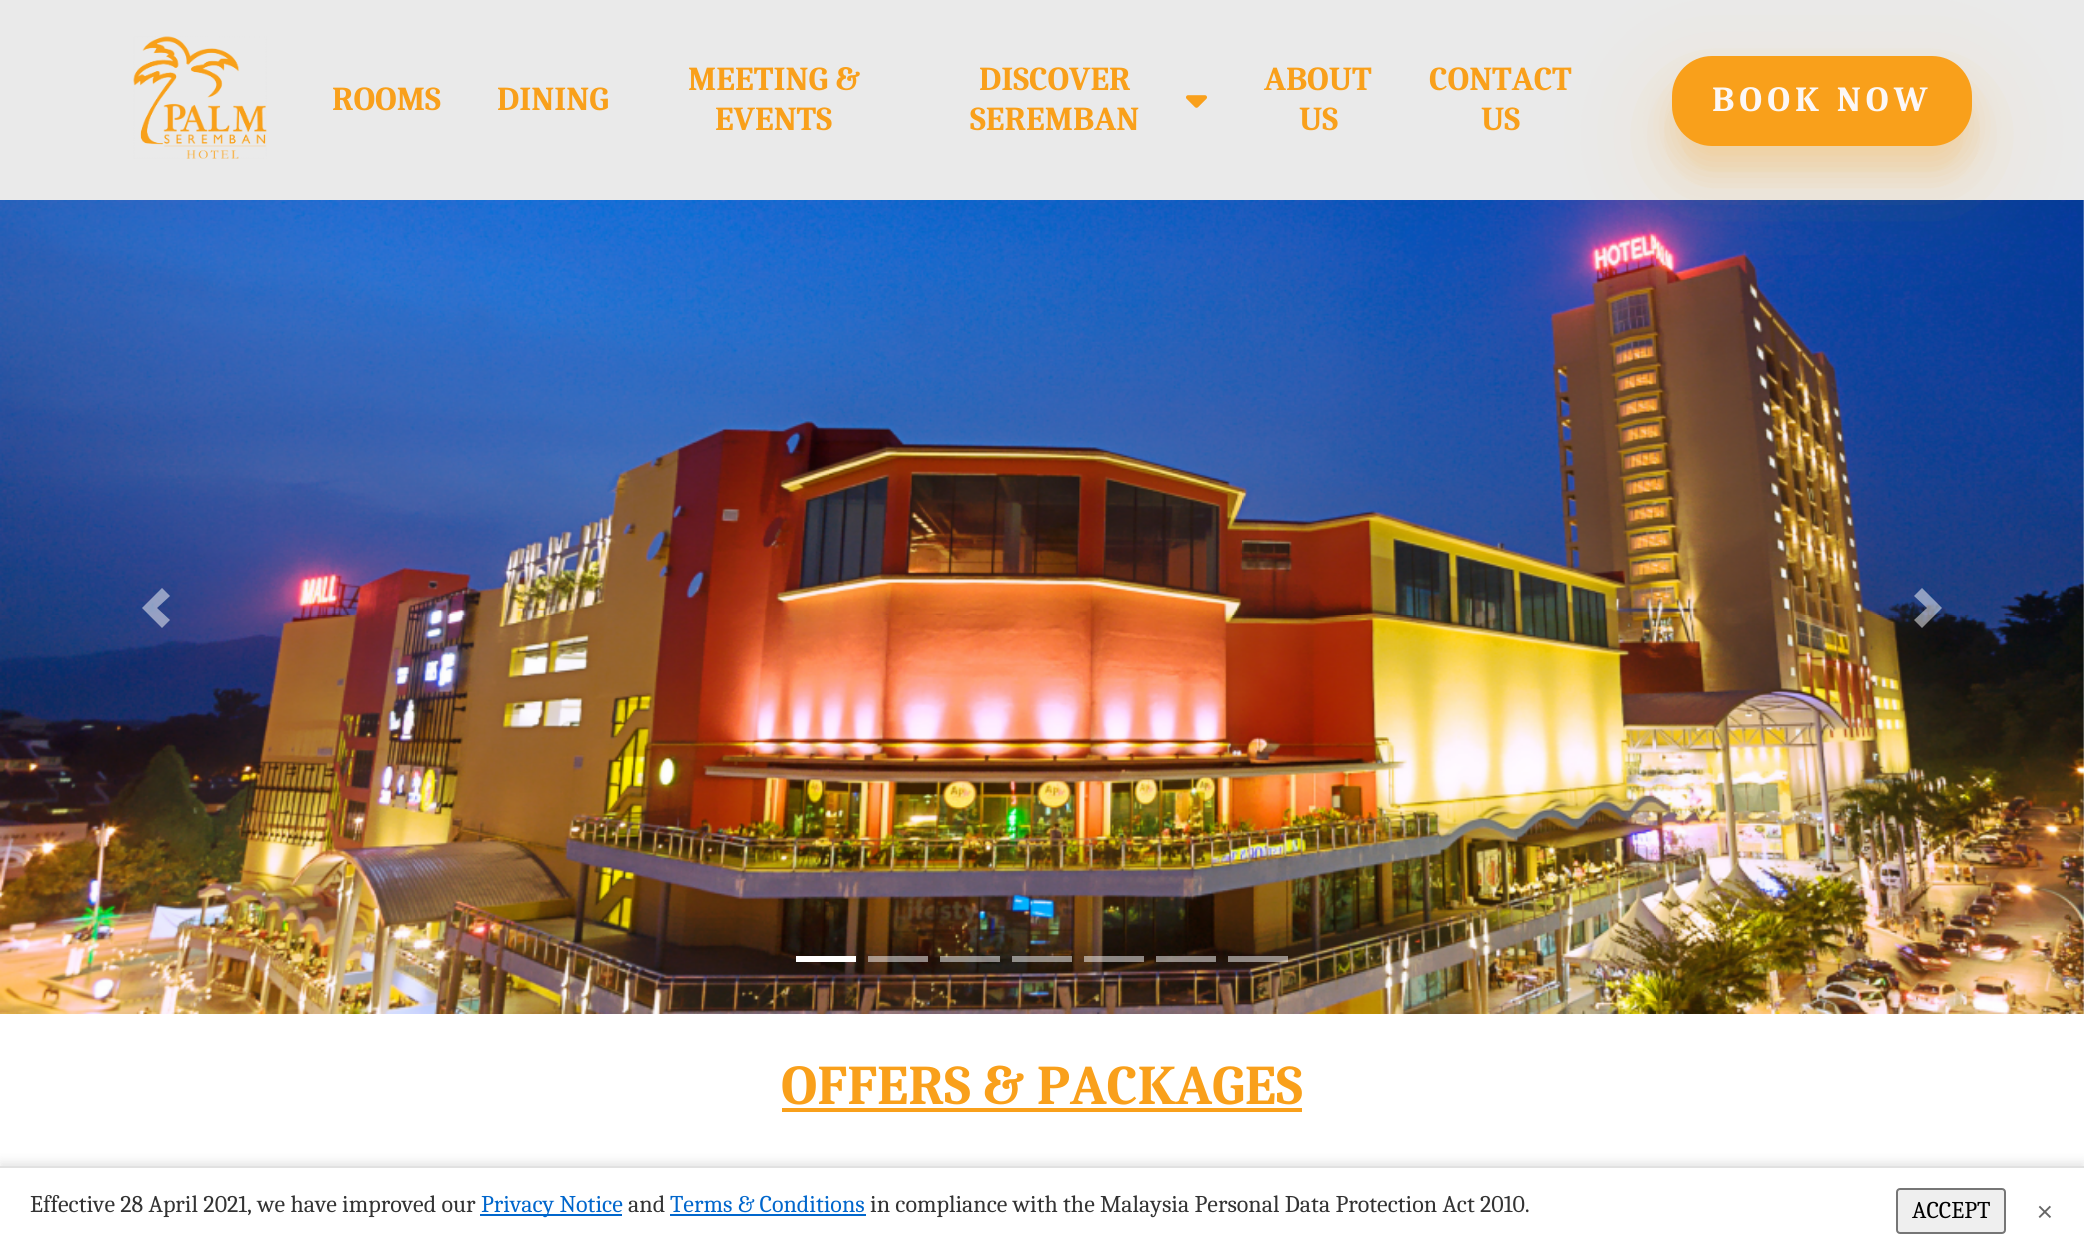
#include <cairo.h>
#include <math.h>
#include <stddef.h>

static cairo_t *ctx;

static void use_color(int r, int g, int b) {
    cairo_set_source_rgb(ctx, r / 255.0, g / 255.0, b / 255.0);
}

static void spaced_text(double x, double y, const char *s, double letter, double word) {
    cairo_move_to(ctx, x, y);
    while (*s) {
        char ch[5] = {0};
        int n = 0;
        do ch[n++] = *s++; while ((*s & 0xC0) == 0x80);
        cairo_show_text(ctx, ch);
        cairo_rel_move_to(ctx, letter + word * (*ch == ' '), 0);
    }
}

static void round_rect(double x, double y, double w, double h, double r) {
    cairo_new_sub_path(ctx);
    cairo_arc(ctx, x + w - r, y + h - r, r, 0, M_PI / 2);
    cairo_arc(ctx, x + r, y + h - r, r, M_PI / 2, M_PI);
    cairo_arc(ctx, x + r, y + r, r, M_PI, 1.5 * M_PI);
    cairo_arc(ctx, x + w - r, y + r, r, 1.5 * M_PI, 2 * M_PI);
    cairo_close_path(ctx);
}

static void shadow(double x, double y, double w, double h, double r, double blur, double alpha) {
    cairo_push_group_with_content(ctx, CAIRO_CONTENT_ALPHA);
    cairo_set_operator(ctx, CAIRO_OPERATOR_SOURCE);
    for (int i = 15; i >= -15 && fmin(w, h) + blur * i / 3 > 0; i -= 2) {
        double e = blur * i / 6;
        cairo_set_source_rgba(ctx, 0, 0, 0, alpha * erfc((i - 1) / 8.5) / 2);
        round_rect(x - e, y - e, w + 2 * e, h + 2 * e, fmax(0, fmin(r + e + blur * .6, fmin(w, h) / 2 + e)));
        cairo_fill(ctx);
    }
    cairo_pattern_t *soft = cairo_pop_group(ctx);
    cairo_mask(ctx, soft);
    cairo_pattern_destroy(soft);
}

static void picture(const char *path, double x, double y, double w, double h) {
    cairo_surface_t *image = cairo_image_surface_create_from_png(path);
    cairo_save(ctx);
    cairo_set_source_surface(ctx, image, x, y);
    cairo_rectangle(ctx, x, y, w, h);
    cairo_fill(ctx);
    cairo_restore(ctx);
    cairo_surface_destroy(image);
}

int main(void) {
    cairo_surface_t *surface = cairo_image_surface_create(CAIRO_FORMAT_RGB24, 2084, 1254);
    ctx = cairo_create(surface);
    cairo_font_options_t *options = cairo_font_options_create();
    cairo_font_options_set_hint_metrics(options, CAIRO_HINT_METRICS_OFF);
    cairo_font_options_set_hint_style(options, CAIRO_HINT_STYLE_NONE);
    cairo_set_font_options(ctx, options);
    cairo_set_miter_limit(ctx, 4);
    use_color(255, 255, 255);
    cairo_paint(ctx);
    use_color(234, 234, 234);
    cairo_rectangle(ctx, 0, 0, 2084, 200);
    cairo_fill(ctx);
    picture("img1.png", 133, 36, 134, 123);
    cairo_select_font_face(ctx, "Caladea", CAIRO_FONT_SLANT_NORMAL, CAIRO_FONT_WEIGHT_BOLD);
    cairo_set_font_size(ctx, 33.5);
    use_color(249, 160, 27);
    cairo_move_to(ctx, 332, 110);
    cairo_show_text(ctx, "ROOMS");
    cairo_move_to(ctx, 497, 110);
    cairo_show_text(ctx, "DINING");
    cairo_move_to(ctx, 688, 90);
    cairo_show_text(ctx, "MEETING &");
    cairo_move_to(ctx, 715, 130);
    cairo_show_text(ctx, "EVENTS");
    cairo_move_to(ctx, 979, 90);
    cairo_show_text(ctx, "DISCOVER");
    picture("img2.png", 1186, 95, 21, 13);
    cairo_move_to(ctx, 970, 130);
    cairo_show_text(ctx, "SEREMBAN");
    cairo_move_to(ctx, 1264, 90);
    cairo_show_text(ctx, "ABOUT");
    cairo_move_to(ctx, 1299, 130);
    cairo_show_text(ctx, "US");
    cairo_move_to(ctx, 1429, 90);
    cairo_show_text(ctx, "CONTACT");
    cairo_move_to(ctx, 1481, 130);
    cairo_show_text(ctx, "US");
    picture("img3.png", 0, 200, 2084, 814);
    use_color(249, 160, 27);
    shadow(1672, 90, 300, 90, 40, 50, 0.19);
    shadow(1672, 80, 300, 90, 40, 16, 0.24);
    use_color(249, 160, 27);
    round_rect(1674, 58, 296, 86, 38);
    cairo_fill_preserve(ctx);
    cairo_set_line_width(ctx, 4);
    cairo_stroke(ctx);
    cairo_set_font_size(ctx, 35.25);
    use_color(252, 247, 246);
    spaced_text(1712, 111, "BOOK NOW", 5, 0);
    cairo_set_source_rgba(ctx, 1, 1, 1, 0.5);
    cairo_new_path(ctx);
    cairo_move_to(ctx, 162, 588);
    cairo_line_to(ctx, 142, 608);
    cairo_line_to(ctx, 162, 628);
    cairo_line_to(ctx, 170, 620);
    cairo_line_to(ctx, 157, 608);
    cairo_line_to(ctx, 170, 596);
    cairo_close_path(ctx);
    cairo_fill(ctx);
    cairo_new_path(ctx);
    cairo_move_to(ctx, 1922, 588);
    cairo_line_to(ctx, 1914, 596);
    cairo_line_to(ctx, 1927, 608);
    cairo_line_to(ctx, 1914, 620);
    cairo_line_to(ctx, 1922, 628);
    cairo_line_to(ctx, 1942, 608);
    cairo_close_path(ctx);
    cairo_fill(ctx);
    use_color(255, 255, 255);
    cairo_rectangle(ctx, 796, 956, 60, 6);
    cairo_fill(ctx);
    cairo_set_source_rgba(ctx, 1, 1, 1, 0.5);
    cairo_rectangle(ctx, 868, 956, 60, 6);
    cairo_fill(ctx);
    cairo_rectangle(ctx, 940, 956, 60, 6);
    cairo_fill(ctx);
    cairo_rectangle(ctx, 1012, 956, 60, 6);
    cairo_fill(ctx);
    cairo_rectangle(ctx, 1084, 956, 60, 6);
    cairo_fill(ctx);
    cairo_rectangle(ctx, 1156, 956, 60, 6);
    cairo_fill(ctx);
    cairo_rectangle(ctx, 1228, 956, 60, 6);
    cairo_fill(ctx);
    cairo_set_font_size(ctx, 56);
    use_color(249, 160, 27);
    cairo_move_to(ctx, 781, 1104);
    cairo_show_text(ctx, "OFFERS & PACKAGES");
    cairo_rectangle(ctx, 782, 1108, 520, 4);
    cairo_fill(ctx);
    use_color(0, 0, 0);
    shadow(0, 1162, 2084, 88, 0, 5, 0.1);
    use_color(255, 255, 255);
    cairo_rectangle(ctx, 0, 1168, 2084, 86);
    cairo_fill(ctx);
    use_color(225, 225, 225);
    cairo_rectangle(ctx, 0, 1166, 2084, 2);
    cairo_fill(ctx);
    cairo_select_font_face(ctx, "Caladea", CAIRO_FONT_SLANT_NORMAL, CAIRO_FONT_WEIGHT_NORMAL);
    cairo_set_font_size(ctx, 24);
    use_color(51, 51, 51);
    cairo_move_to(ctx, 30, 1212);
    cairo_show_text(ctx, "Effective 28 April 2021, we have improved our");
    use_color(0, 102, 204);
    cairo_rectangle(ctx, 480, 1214, 142, 2);
    cairo_fill(ctx);
    cairo_move_to(ctx, 481, 1212);
    cairo_show_text(ctx, "Privacy Notice");
    use_color(51, 51, 51);
    cairo_move_to(ctx, 628, 1212);
    cairo_show_text(ctx, "and");
    use_color(0, 102, 204);
    cairo_move_to(ctx, 670, 1212);
    cairo_show_text(ctx, "Terms & Conditions");
    cairo_rectangle(ctx, 670, 1214, 196, 2);
    cairo_fill(ctx);
    use_color(51, 51, 51);
    cairo_move_to(ctx, 870, 1212);
    cairo_show_text(ctx, "in compliance with the Malaysia Personal Data Protection Act 2010.");
    use_color(239, 239, 239);
    round_rect(1897, 1189, 108, 44, 3);
    cairo_fill_preserve(ctx);
    use_color(118, 118, 118);
    cairo_set_line_width(ctx, 2);
    cairo_stroke(ctx);
    use_color(0, 0, 0);
    cairo_move_to(ctx, 1912, 1218);
    cairo_show_text(ctx, "ACCEPT");
    cairo_set_font_size(ctx, 32);
    use_color(102, 102, 102);
    cairo_move_to(ctx, 2036, 1221);
    cairo_show_text(ctx, "×");
    cairo_surface_write_to_png(surface, "result.png");
    cairo_font_options_destroy(options);
    cairo_destroy(ctx);
    cairo_surface_destroy(surface);
    return 0;
}
